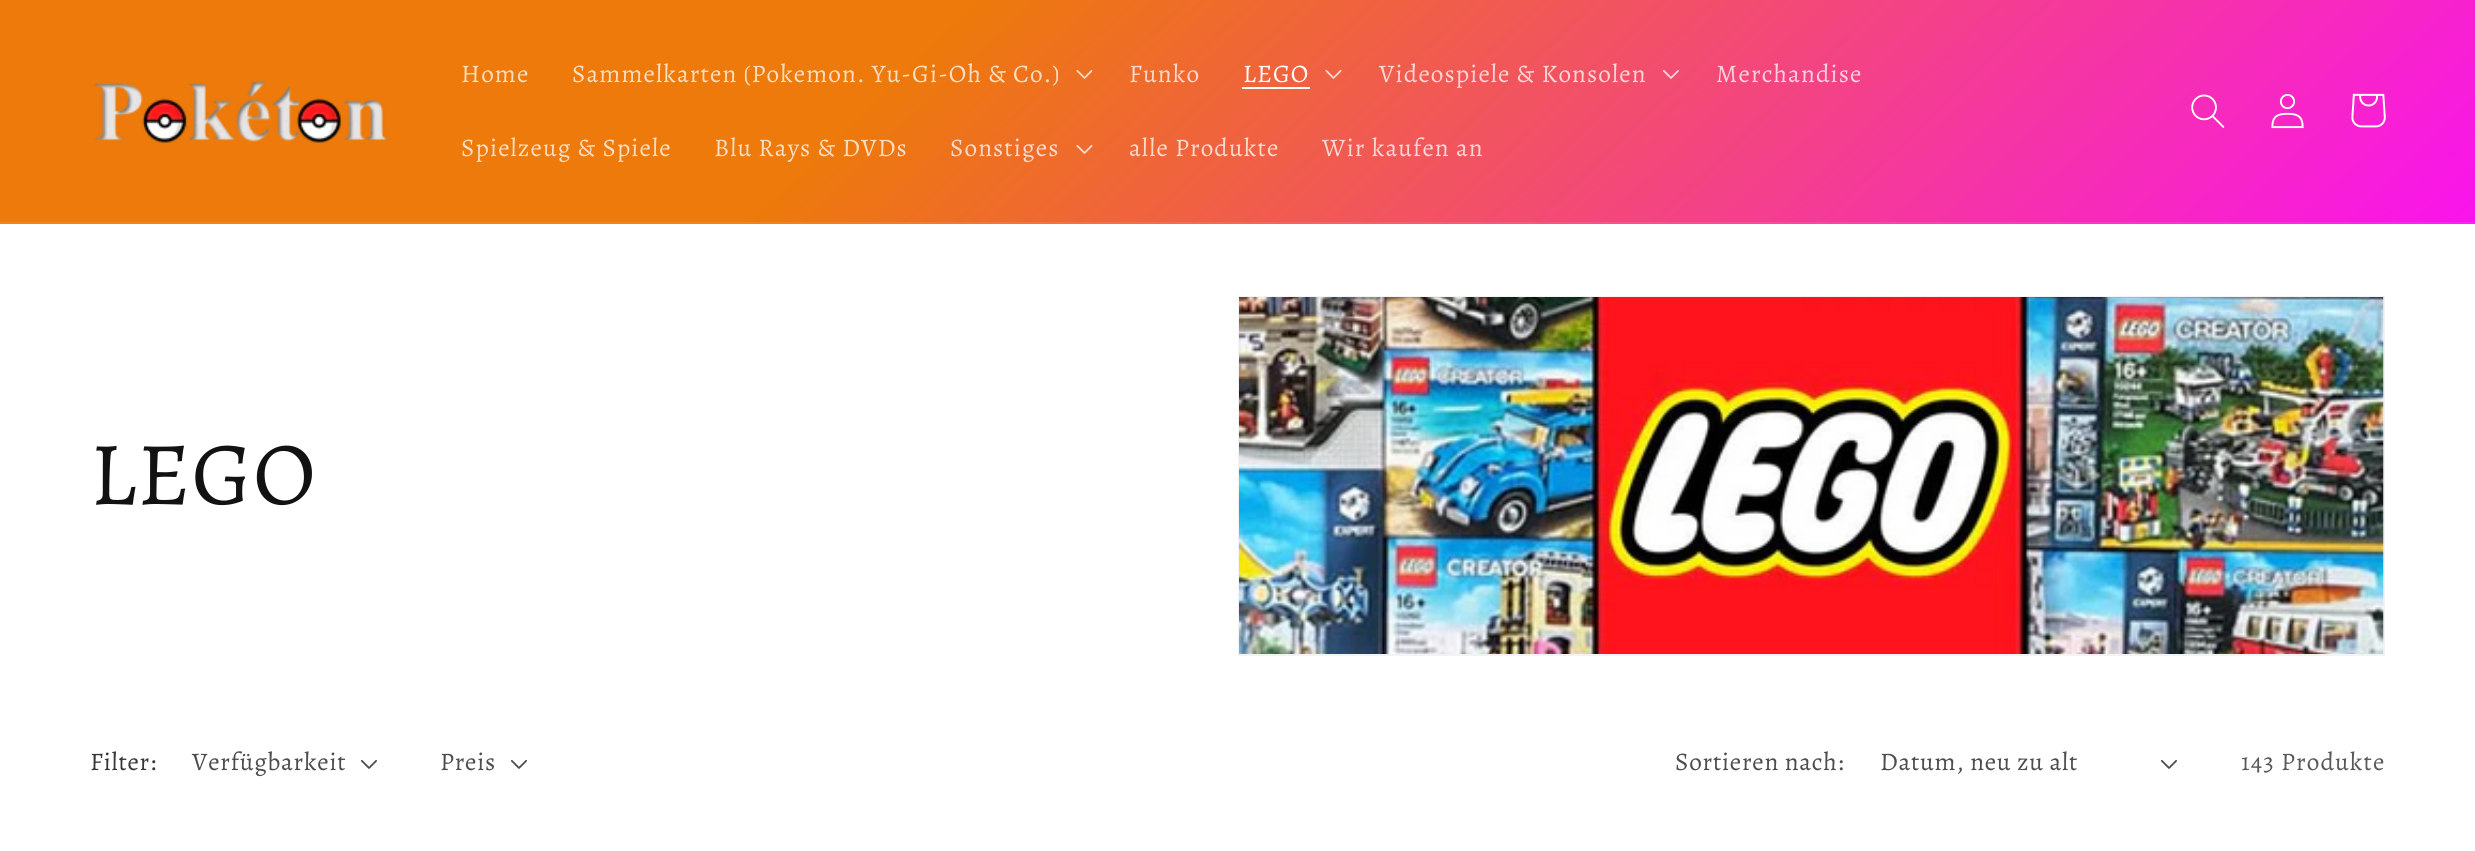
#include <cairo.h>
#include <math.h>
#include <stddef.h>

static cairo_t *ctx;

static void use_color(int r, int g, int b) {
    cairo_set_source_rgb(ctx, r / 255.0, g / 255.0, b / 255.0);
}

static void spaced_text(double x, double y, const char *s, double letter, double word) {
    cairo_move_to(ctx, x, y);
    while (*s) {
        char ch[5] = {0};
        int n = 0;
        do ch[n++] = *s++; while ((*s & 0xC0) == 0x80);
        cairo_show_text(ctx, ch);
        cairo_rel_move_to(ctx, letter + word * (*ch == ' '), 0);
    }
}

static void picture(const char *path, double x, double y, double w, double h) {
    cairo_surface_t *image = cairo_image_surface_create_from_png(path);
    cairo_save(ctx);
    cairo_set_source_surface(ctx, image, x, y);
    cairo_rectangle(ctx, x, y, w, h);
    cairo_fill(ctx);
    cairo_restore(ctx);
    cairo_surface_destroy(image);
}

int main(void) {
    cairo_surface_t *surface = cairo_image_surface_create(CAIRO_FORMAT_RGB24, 2475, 851);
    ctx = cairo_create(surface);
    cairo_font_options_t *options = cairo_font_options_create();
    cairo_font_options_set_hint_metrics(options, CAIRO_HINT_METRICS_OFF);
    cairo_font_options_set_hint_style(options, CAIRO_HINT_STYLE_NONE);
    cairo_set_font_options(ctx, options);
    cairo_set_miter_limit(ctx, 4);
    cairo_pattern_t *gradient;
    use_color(255, 255, 255);
    cairo_paint(ctx);
    gradient = cairo_pattern_create_linear(427, -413, 2048, 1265);
    cairo_pattern_add_color_stop_rgba(gradient, 0.29, 0.929, 0.478, 0.039, 1);
    cairo_pattern_add_color_stop_rgba(gradient, 0.84, 0.98, 0.051, 0.992, 1);
    cairo_set_source(ctx, gradient);
    cairo_pattern_destroy(gradient);
    cairo_rectangle(ctx, 0, 0, 2475, 222);
    cairo_fill(ctx);
    gradient = cairo_pattern_create_linear(427, -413, 2048, 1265);
    cairo_pattern_add_color_stop_rgba(gradient, 0.29, 0.933, 0.522, 0.118, 1);
    cairo_pattern_add_color_stop_rgba(gradient, 0.84, 0.98, 0.125, 0.992, 1);
    cairo_set_source(ctx, gradient);
    cairo_pattern_destroy(gradient);
    cairo_rectangle(ctx, 0, 222, 2475, 2);
    cairo_fill(ctx);
    picture("img1.png", 94, 80, 294, 63);
    cairo_select_font_face(ctx, "Alegreya", CAIRO_FONT_SLANT_NORMAL, CAIRO_FONT_WEIGHT_NORMAL);
    cairo_set_font_size(ctx, 25.25);
    use_color(251, 222, 194);
    spaced_text(461, 82, "Home", 1.1, 0);
    spaced_text(572, 82, "Sammelkarten (Pokemon. Yu-Gi-Oh & Co.)", 1.1, 0);
    picture("img2.png", 1076, 70, 16, 9);
    use_color(251, 218, 203);
    spaced_text(1129, 82, "Funko", 1.1, 0);
    use_color(255, 255, 255);
    spaced_text(1243, 82, "LEGO", 1.1, 0);
    cairo_rectangle(ctx, 1242, 87, 68, 2);
    cairo_fill(ctx);
    picture("img3.png", 1325, 70, 17, 9);
    use_color(252, 213, 213);
    spaced_text(1379, 82, "Videospiele & Konsolen", 1.1, 0);
    picture("img4.png", 1663, 70, 16, 9);
    use_color(252, 209, 223);
    spaced_text(1716, 82, "Merchandise", 1.1, 0);
    use_color(251, 222, 194);
    spaced_text(461, 156, "Spielzeug & Spiele", 1.1, 0);
    spaced_text(714, 156, "Blu Rays & DVDs", 1.1, 0);
    use_color(251, 218, 203);
    spaced_text(950, 156, "Sonstiges", 1.1, 0);
    picture("img5.png", 1076, 145, 17, 9);
    spaced_text(1129, 156, "alle Produkte", 1.1, 0);
    use_color(252, 213, 213);
    spaced_text(1322, 156, "Wir kaufen an", 1.1, 0);
    picture("img6.png", 2191, 94, 34, 34);
    picture("img7.png", 2271, 93, 33, 36);
    picture("img8.png", 2351, 93, 35, 35);
    cairo_set_font_size(ctx, 90);
    use_color(18, 18, 18);
    spaced_text(90, 504, "LEGO", 1.5, 0);
    cairo_rectangle(ctx, 1239, 297, 1145, 358);
    use_color(243, 243, 243);
    cairo_stroke(ctx);
    picture("img9.png", 1239, 297, 1145, 357);
    cairo_set_font_size(ctx, 25.25);
    use_color(54, 54, 54);
    spaced_text(90, 770, "Filter:", 0.75, 0);
    use_color(77, 77, 77);
    spaced_text(192, 770, "Verfügbarkeit", 0.75, 0);
    picture("img10.png", 361, 760, 16, 9);
    spaced_text(440, 770, "Preis", 0.75, 0);
    picture("img10.png", 511, 760, 16, 9);
    spaced_text(1675, 770, "Sortieren nach:", 0.75, 0);
    spaced_text(1880, 770, "Datum, neu zu alt", 0.75, 0);
    picture("img10.png", 2161, 760, 16, 9);
    use_color(89, 89, 89);
    spaced_text(2241, 770, "143 Produkte", 1.1, 0);
    cairo_surface_write_to_png(surface, "result.png");
    cairo_font_options_destroy(options);
    cairo_destroy(ctx);
    cairo_surface_destroy(surface);
    return 0;
}
